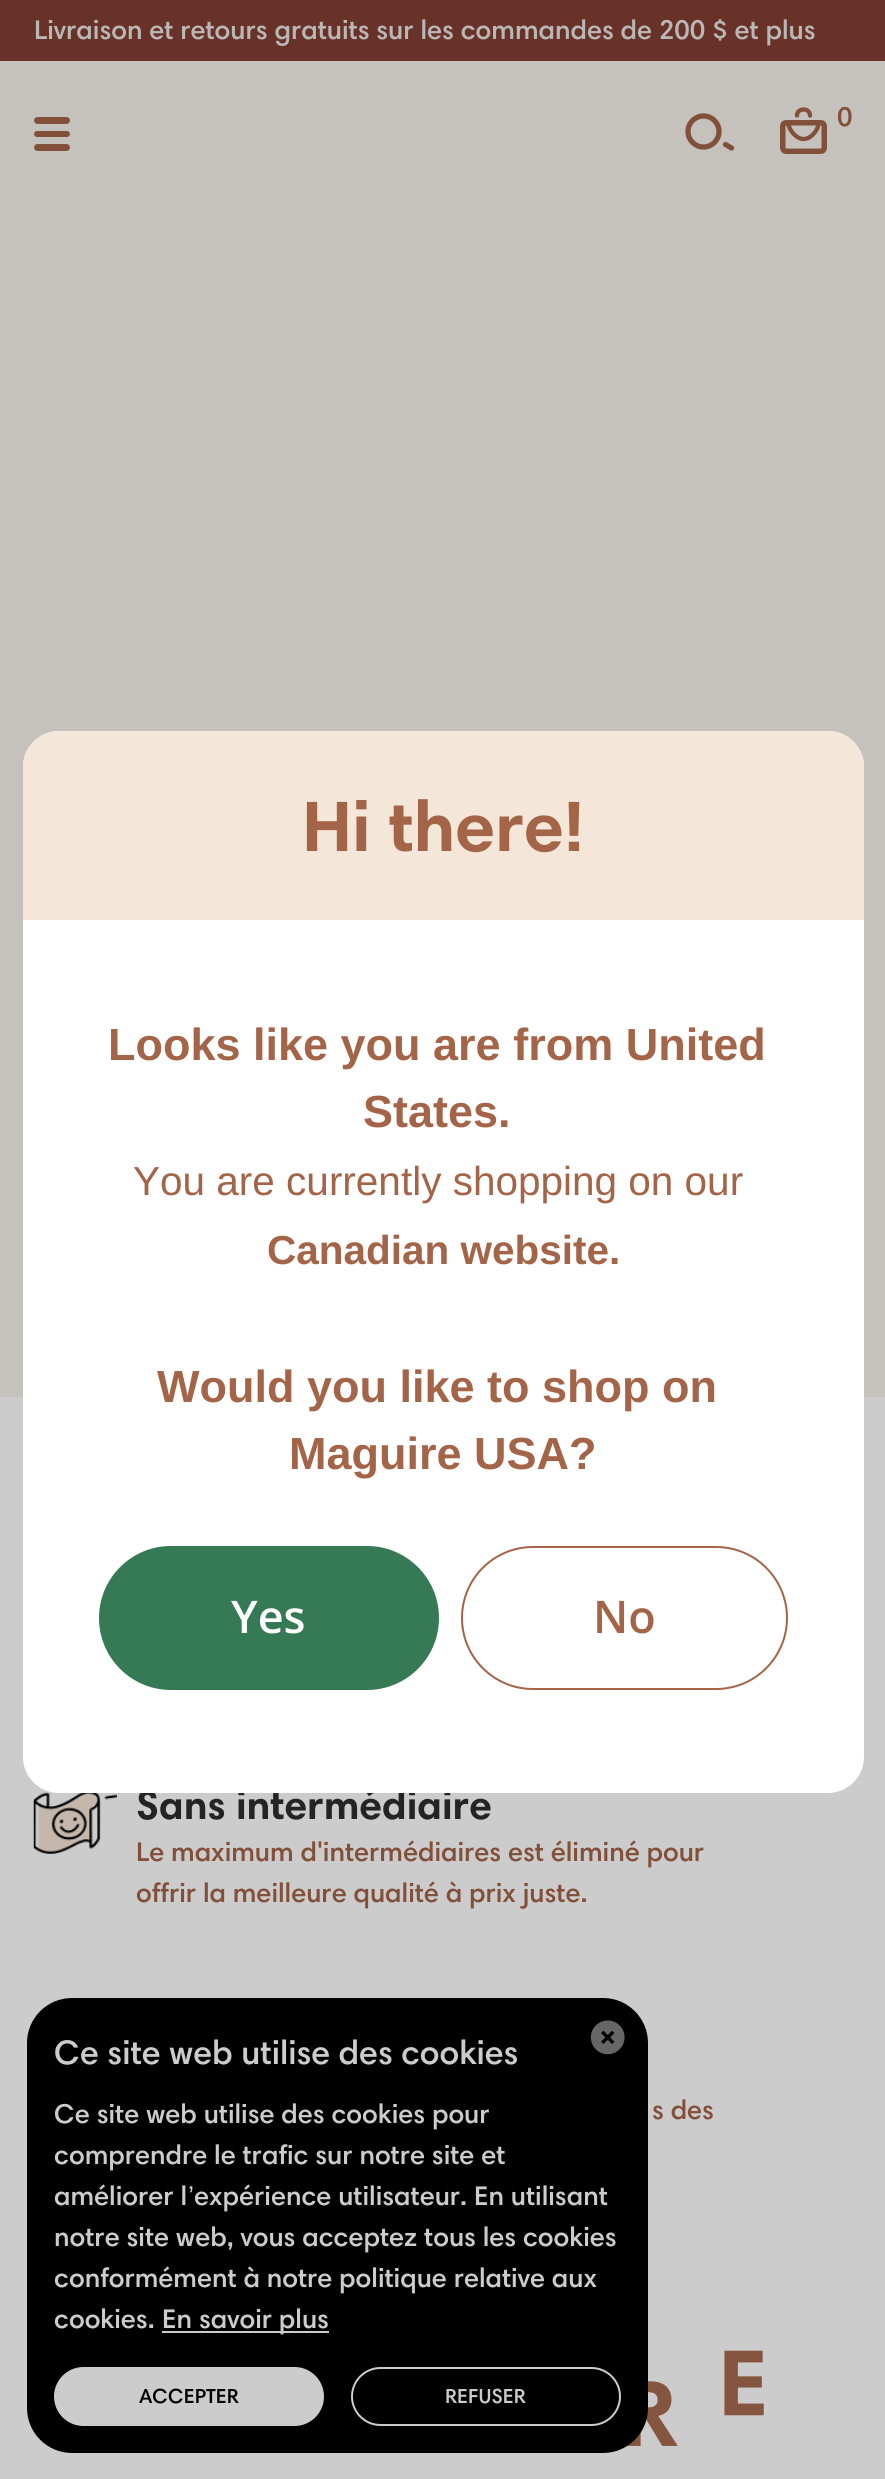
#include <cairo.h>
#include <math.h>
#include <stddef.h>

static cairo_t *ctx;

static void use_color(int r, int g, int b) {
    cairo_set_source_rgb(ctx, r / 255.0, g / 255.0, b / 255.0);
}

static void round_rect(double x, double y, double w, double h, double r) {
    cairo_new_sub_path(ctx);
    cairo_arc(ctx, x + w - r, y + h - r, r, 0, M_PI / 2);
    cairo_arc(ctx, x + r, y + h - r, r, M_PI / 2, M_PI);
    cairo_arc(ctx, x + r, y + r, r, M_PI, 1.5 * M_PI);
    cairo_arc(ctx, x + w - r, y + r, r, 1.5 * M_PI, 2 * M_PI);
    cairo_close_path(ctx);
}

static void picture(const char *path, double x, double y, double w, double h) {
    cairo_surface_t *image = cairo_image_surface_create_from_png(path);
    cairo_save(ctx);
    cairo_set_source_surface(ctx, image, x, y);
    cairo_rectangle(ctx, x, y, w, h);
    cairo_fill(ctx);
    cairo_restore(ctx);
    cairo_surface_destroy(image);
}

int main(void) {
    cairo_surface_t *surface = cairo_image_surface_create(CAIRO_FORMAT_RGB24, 885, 2479);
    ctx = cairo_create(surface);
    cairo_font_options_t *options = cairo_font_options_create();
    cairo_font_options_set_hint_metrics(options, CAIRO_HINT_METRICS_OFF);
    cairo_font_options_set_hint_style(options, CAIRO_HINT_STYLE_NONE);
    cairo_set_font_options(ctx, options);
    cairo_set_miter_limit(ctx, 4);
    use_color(197, 194, 189);
    cairo_paint(ctx);
    use_color(105, 50, 41);
    cairo_rectangle(ctx, 0, 0, 885, 61);
    cairo_fill(ctx);
    cairo_select_font_face(ctx, "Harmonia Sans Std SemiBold", CAIRO_FONT_SLANT_NORMAL, CAIRO_FONT_WEIGHT_NORMAL);
    cairo_set_font_size(ctx, 27.25);
    use_color(186, 183, 183);
    cairo_move_to(ctx, 34, 39);
    cairo_show_text(ctx, "Livraison et retours gratuits sur les commandes de 200 $ et plus");
    use_color(130, 80, 58);
    round_rect(34, 117, 36, 7, 3.5);
    cairo_fill(ctx);
    round_rect(34, 131, 36, 6, 3);
    cairo_fill(ctx);
    round_rect(34, 144, 36, 7, 3.5);
    cairo_fill(ctx);
    cairo_arc(ctx, 703.5, 131.5, 15.5, 0, 2 * M_PI);
    cairo_set_line_width(ctx, 5.3);
    cairo_stroke(ctx);
    cairo_new_path(ctx);
    cairo_move_to(ctx, 725.5, 144.5);
    cairo_line_to(ctx, 731.5, 148);
    cairo_set_line_cap(ctx, CAIRO_LINE_CAP_ROUND);
    cairo_set_line_join(ctx, CAIRO_LINE_JOIN_ROUND);
    cairo_stroke(ctx);
    cairo_new_path(ctx);
    cairo_move_to(ctx, 810, 115.5);
    cairo_curve_to(ctx, 810, 107.5, 797, 107.5, 797, 115.5);
    cairo_move_to(ctx, 788.5, 124);
    cairo_curve_to(ctx, 788.5, 128.5, 795.5, 139, 803.5, 139);
    cairo_curve_to(ctx, 812, 139, 818.5, 128.5, 818.5, 124);
    cairo_set_line_width(ctx, 4.3);
    cairo_set_line_join(ctx, CAIRO_LINE_JOIN_MITER);
    cairo_stroke(ctx);
    round_rect(782.75, 122.75, 41.5, 28.5, 3.25);
    cairo_set_line_width(ctx, 5.5);
    cairo_set_line_cap(ctx, CAIRO_LINE_CAP_BUTT);
    cairo_stroke(ctx);
    cairo_move_to(ctx, 837, 126);
    cairo_show_text(ctx, "0");
    use_color(204, 204, 204);
    cairo_rectangle(ctx, 0, 1397, 885, 1082);
    cairo_fill(ctx);
    picture("img1.png", 33, 1792, 84, 62);
    cairo_select_font_face(ctx, "Harmonia Sans Std", CAIRO_FONT_SLANT_NORMAL, CAIRO_FONT_WEIGHT_BOLD);
    cairo_set_font_size(ctx, 41);
    use_color(36, 36, 36);
    cairo_move_to(ctx, 136, 1819);
    cairo_show_text(ctx, "Sans intermédiaire");
    cairo_select_font_face(ctx, "Harmonia Sans Std SemiBold", CAIRO_FONT_SLANT_NORMAL, CAIRO_FONT_WEIGHT_NORMAL);
    cairo_set_font_size(ctx, 27.25);
    use_color(130, 80, 58);
    cairo_move_to(ctx, 136, 1861);
    cairo_show_text(ctx, "Le maximum d'intermédiaires est éliminé pour");
    cairo_move_to(ctx, 136, 1902);
    cairo_show_text(ctx, "offrir la meilleure qualité à prix juste.");
    cairo_move_to(ctx, 652, 2119);
    cairo_show_text(ctx, "s des");
    picture("img2.png", 627, 2350, 137, 96);
    use_color(0, 0, 0);
    round_rect(27, 1998, 621, 455, 45);
    cairo_fill(ctx);
    cairo_set_font_size(ctx, 34.1);
    use_color(204, 204, 204);
    cairo_move_to(ctx, 54, 2064);
    cairo_show_text(ctx, "Ce site web utilise des cookies");
    picture("img3.png", 590, 2020, 35, 35);
    cairo_set_font_size(ctx, 27.25);
    cairo_move_to(ctx, 54, 2123);
    cairo_show_text(ctx, "Ce site web utilise des cookies pour");
    cairo_move_to(ctx, 54, 2164);
    cairo_show_text(ctx, "comprendre le trafic sur notre site et");
    cairo_move_to(ctx, 54, 2205);
    cairo_show_text(ctx, "améliorer l");
    cairo_select_font_face(ctx, "Liberation Sans", CAIRO_FONT_SLANT_NORMAL, CAIRO_FONT_WEIGHT_NORMAL);
    cairo_move_to(ctx, 188, 2205);
    cairo_show_text(ctx, "’");
    cairo_select_font_face(ctx, "Harmonia Sans Std SemiBold", CAIRO_FONT_SLANT_NORMAL, CAIRO_FONT_WEIGHT_NORMAL);
    cairo_move_to(ctx, 194, 2205);
    cairo_show_text(ctx, "expérience utilisateur. En utilisant");
    cairo_move_to(ctx, 54, 2246);
    cairo_show_text(ctx, "notre site web, vous acceptez tous les cookies");
    cairo_move_to(ctx, 54, 2287);
    cairo_show_text(ctx, "conformément à notre politique relative aux");
    cairo_move_to(ctx, 54, 2328);
    cairo_show_text(ctx, "cookies.");
    cairo_rectangle(ctx, 162, 2331, 167, 2);
    cairo_fill(ctx);
    cairo_move_to(ctx, 162, 2328);
    cairo_show_text(ctx, "En savoir plus");
    round_rect(55, 2368, 268, 57, 28.5);
    cairo_fill_preserve(ctx);
    cairo_set_line_width(ctx, 2);
    cairo_stroke(ctx);
    cairo_set_font_size(ctx, 20.5);
    use_color(0, 0, 0);
    cairo_move_to(ctx, 139, 2403);
    cairo_show_text(ctx, "ACCEPTER");
    round_rect(352, 2368, 268, 57, 28.5);
    use_color(204, 204, 204);
    cairo_stroke(ctx);
    cairo_move_to(ctx, 445, 2403);
    cairo_show_text(ctx, "REFUSER");
    use_color(255, 255, 255);
    round_rect(23, 731, 841, 1062, 36);
    cairo_fill(ctx);
    use_color(244, 230, 217);
    cairo_new_path(ctx);
    cairo_move_to(ctx, 59, 731);
    cairo_line_to(ctx, 828, 731);
    cairo_curve_to(ctx, 848, 731, 864, 747, 864, 767);
    cairo_line_to(ctx, 864, 920);
    cairo_line_to(ctx, 23, 920);
    cairo_line_to(ctx, 23, 767);
    cairo_curve_to(ctx, 23, 747, 39, 731, 59, 731);
    cairo_close_path(ctx);
    cairo_fill(ctx);
    cairo_select_font_face(ctx, "Harmonia Sans Std", CAIRO_FONT_SLANT_NORMAL, CAIRO_FONT_WEIGHT_BOLD);
    cairo_set_font_size(ctx, 72);
    use_color(163, 100, 72);
    cairo_move_to(ctx, 302, 851);
    cairo_show_text(ctx, "Hi there!");
    cairo_select_font_face(ctx, "Liberation Sans", CAIRO_FONT_SLANT_NORMAL, CAIRO_FONT_WEIGHT_BOLD);
    cairo_set_font_size(ctx, 45);
    cairo_move_to(ctx, 108, 1060);
    cairo_show_text(ctx, "Looks like you are from United");
    cairo_move_to(ctx, 363, 1127);
    cairo_show_text(ctx, "States.");
    cairo_select_font_face(ctx, "Liberation Sans", CAIRO_FONT_SLANT_NORMAL, CAIRO_FONT_WEIGHT_NORMAL);
    cairo_set_font_size(ctx, 40.5);
    cairo_move_to(ctx, 133, 1195);
    cairo_show_text(ctx, "You are currently shopping on our");
    cairo_select_font_face(ctx, "Liberation Sans", CAIRO_FONT_SLANT_NORMAL, CAIRO_FONT_WEIGHT_BOLD);
    cairo_move_to(ctx, 267, 1264);
    cairo_show_text(ctx, "Canadian website.");
    cairo_set_font_size(ctx, 45);
    cairo_move_to(ctx, 157, 1402);
    cairo_show_text(ctx, "Would you like to shop on");
    cairo_move_to(ctx, 289, 1469);
    cairo_show_text(ctx, "Maguire USA?");
    use_color(53, 121, 85);
    round_rect(100, 1547, 338, 142, 71);
    cairo_fill_preserve(ctx);
    cairo_stroke(ctx);
    cairo_select_font_face(ctx, "Open Sans SemiBold", CAIRO_FONT_SLANT_NORMAL, CAIRO_FONT_WEIGHT_NORMAL);
    use_color(255, 255, 255);
    cairo_move_to(ctx, 231, 1633);
    cairo_show_text(ctx, "Yes");
    round_rect(462, 1547, 325, 142, 71);
    use_color(163, 100, 72);
    cairo_stroke(ctx);
    cairo_move_to(ctx, 593, 1633);
    cairo_show_text(ctx, "No");
    cairo_surface_write_to_png(surface, "result.png");
    cairo_font_options_destroy(options);
    cairo_destroy(ctx);
    cairo_surface_destroy(surface);
    return 0;
}
